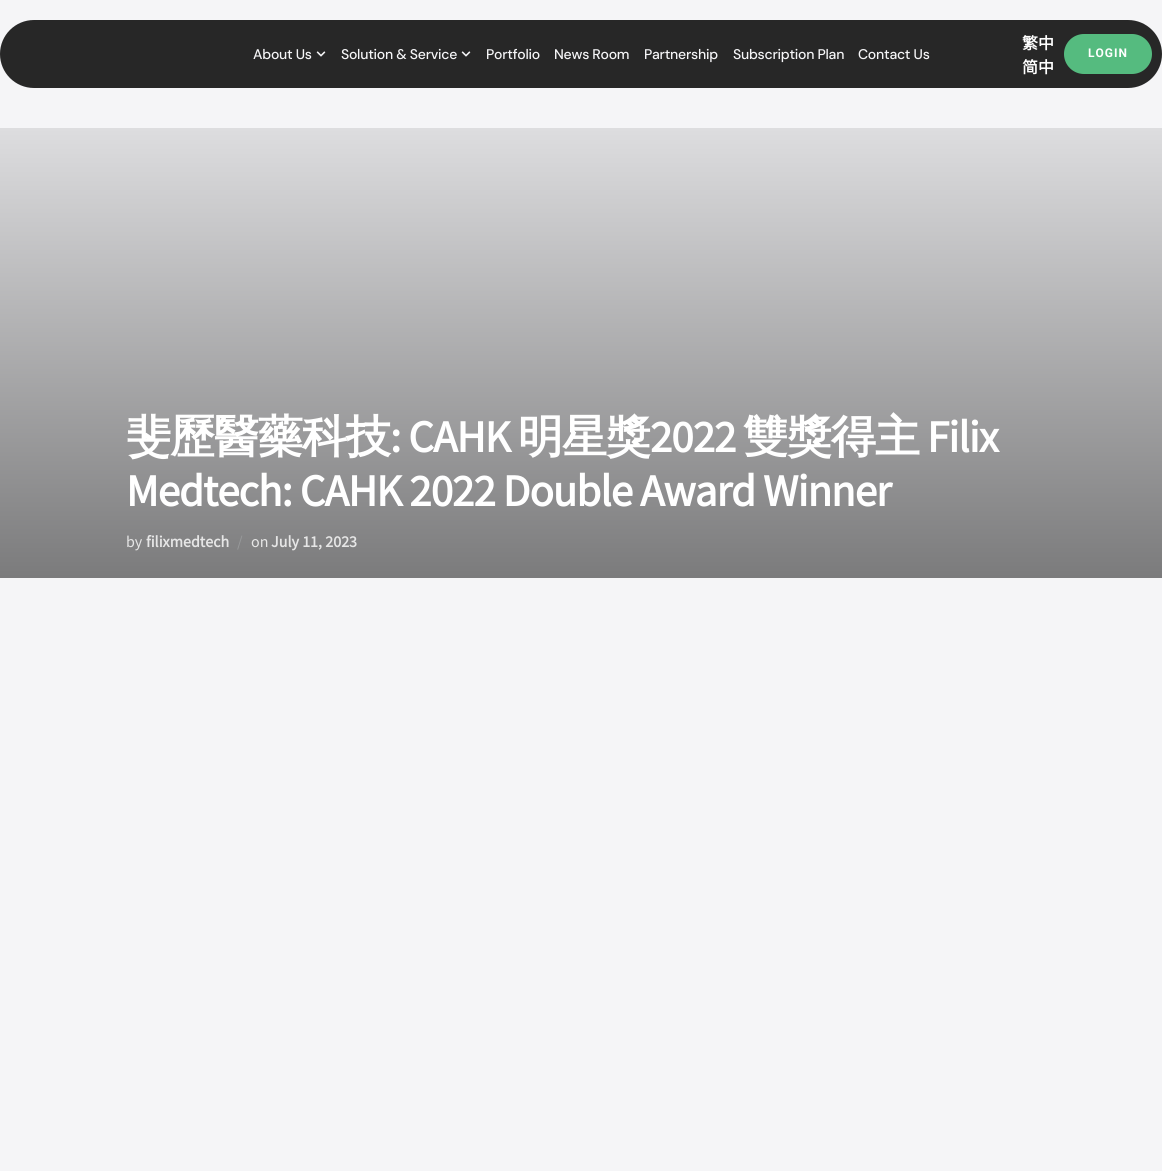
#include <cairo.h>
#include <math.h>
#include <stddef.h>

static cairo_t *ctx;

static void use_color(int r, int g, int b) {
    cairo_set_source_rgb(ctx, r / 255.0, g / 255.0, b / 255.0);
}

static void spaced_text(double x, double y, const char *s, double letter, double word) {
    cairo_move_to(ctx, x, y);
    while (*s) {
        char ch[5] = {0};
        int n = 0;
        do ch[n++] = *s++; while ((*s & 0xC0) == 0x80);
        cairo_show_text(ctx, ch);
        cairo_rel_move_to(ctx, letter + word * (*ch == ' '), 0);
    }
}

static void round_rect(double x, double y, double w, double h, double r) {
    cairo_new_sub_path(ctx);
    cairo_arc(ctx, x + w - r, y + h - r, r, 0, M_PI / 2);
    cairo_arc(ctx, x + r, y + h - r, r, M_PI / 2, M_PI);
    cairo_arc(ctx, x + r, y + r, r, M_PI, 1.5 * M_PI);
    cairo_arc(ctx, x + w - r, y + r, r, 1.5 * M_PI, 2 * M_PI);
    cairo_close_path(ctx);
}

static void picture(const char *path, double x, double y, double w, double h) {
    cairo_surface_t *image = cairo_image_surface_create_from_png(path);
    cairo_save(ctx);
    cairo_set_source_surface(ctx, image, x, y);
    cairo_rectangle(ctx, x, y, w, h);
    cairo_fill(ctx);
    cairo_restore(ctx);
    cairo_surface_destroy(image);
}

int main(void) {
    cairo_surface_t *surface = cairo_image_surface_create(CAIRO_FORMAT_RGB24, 1162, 1171);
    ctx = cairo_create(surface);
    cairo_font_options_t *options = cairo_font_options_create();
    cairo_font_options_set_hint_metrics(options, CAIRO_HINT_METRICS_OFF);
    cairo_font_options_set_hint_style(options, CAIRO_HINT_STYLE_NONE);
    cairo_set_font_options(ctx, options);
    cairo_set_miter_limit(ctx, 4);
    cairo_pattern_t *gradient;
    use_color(245, 245, 247);
    cairo_paint(ctx);
    use_color(39, 39, 39);
    round_rect(0, 20, 1162, 68, 34);
    cairo_fill(ctx);
    cairo_select_font_face(ctx, "DM Sans Medium", CAIRO_FONT_SLANT_NORMAL, CAIRO_FONT_WEIGHT_NORMAL);
    cairo_set_font_size(ctx, 14);
    use_color(245, 245, 247);
    spaced_text(253, 59, "About Us", -0.25, 0);
    picture("img1.png", 316, 51, 10, 6);
    spaced_text(341, 59, "Solution & Service", -0.25, 0);
    picture("img1.png", 461, 51, 10, 6);
    spaced_text(486, 59, "Portfolio", -0.25, 0);
    spaced_text(554, 59, "News Room", -0.25, 0);
    spaced_text(644, 59, "Partnership", -0.25, 0);
    spaced_text(733, 59, "Subscription Plan", -0.25, 0);
    spaced_text(858, 59, "Contact Us", -0.25, 0);
    cairo_select_font_face(ctx, "Noto Sans CJK HK", CAIRO_FONT_SLANT_NORMAL, CAIRO_FONT_WEIGHT_BOLD);
    cairo_set_font_size(ctx, 16);
    use_color(255, 255, 255);
    cairo_move_to(ctx, 1022, 49);
    cairo_show_text(ctx, "繁中");
    cairo_select_font_face(ctx, "Noto Sans CJK SC", CAIRO_FONT_SLANT_NORMAL, CAIRO_FONT_WEIGHT_BOLD);
    cairo_move_to(ctx, 1022, 73);
    cairo_show_text(ctx, "简中");
    use_color(85, 187, 127);
    round_rect(1064, 34, 88, 40, 20);
    cairo_fill(ctx);
    cairo_select_font_face(ctx, "Roboto", CAIRO_FONT_SLANT_NORMAL, CAIRO_FONT_WEIGHT_BOLD);
    cairo_set_font_size(ctx, 12);
    use_color(255, 255, 255);
    spaced_text(1088, 57, "LOGIN", 1, 0);
    gradient = cairo_pattern_create_linear(581, 128, 581, 578);
    cairo_pattern_add_color_stop_rgba(gradient, 0, 0.867, 0.867, 0.875, 1);
    cairo_pattern_add_color_stop_rgba(gradient, 1, 0.482, 0.482, 0.486, 1);
    cairo_set_source(ctx, gradient);
    cairo_pattern_destroy(gradient);
    cairo_rectangle(ctx, 0, 128, 1162, 450);
    cairo_fill(ctx);
    cairo_select_font_face(ctx, "WenQuanYi Zen Hei", CAIRO_FONT_SLANT_NORMAL, CAIRO_FONT_WEIGHT_BOLD);
    cairo_set_font_size(ctx, 45);
    use_color(255, 255, 255);
    spaced_text(126, 452, "斐歷醫藥科技", -1, 0);
    cairo_select_font_face(ctx, "Source Sans Pro", CAIRO_FONT_SLANT_NORMAL, CAIRO_FONT_WEIGHT_BOLD);
    spaced_text(390, 452, ": CAHK", -1, 0);
    cairo_select_font_face(ctx, "WenQuanYi Zen Hei", CAIRO_FONT_SLANT_NORMAL, CAIRO_FONT_WEIGHT_BOLD);
    spaced_text(518, 452, "明星獎", -1, 0);
    cairo_select_font_face(ctx, "Source Sans Pro", CAIRO_FONT_SLANT_NORMAL, CAIRO_FONT_WEIGHT_BOLD);
    spaced_text(650, 452, "2022", -1, 0);
    cairo_select_font_face(ctx, "WenQuanYi Zen Hei", CAIRO_FONT_SLANT_NORMAL, CAIRO_FONT_WEIGHT_BOLD);
    spaced_text(743, 452, "雙獎得主", -1, 0);
    cairo_select_font_face(ctx, "Source Sans Pro", CAIRO_FONT_SLANT_NORMAL, CAIRO_FONT_WEIGHT_BOLD);
    spaced_text(927, 452, "Filix", -1, 0);
    spaced_text(126, 506, "Medtech: CAHK 2022 Double Award Winner", -1, 0);
    cairo_select_font_face(ctx, "Source Sans Pro", CAIRO_FONT_SLANT_NORMAL, CAIRO_FONT_WEIGHT_NORMAL);
    cairo_set_font_size(ctx, 16);
    use_color(230, 230, 230);
    cairo_move_to(ctx, 126, 547);
    cairo_show_text(ctx, "by");
    cairo_select_font_face(ctx, "Source Sans Pro", CAIRO_FONT_SLANT_NORMAL, CAIRO_FONT_WEIGHT_BOLD);
    cairo_move_to(ctx, 146, 547);
    cairo_show_text(ctx, "filixmedtech");
    cairo_select_font_face(ctx, "Source Sans Pro", CAIRO_FONT_SLANT_NORMAL, CAIRO_FONT_WEIGHT_NORMAL);
    use_color(151, 153, 154);
    cairo_move_to(ctx, 237, 547);
    cairo_show_text(ctx, "/");
    use_color(230, 230, 230);
    cairo_move_to(ctx, 251, 547);
    cairo_show_text(ctx, "on");
    cairo_select_font_face(ctx, "Source Sans Pro", CAIRO_FONT_SLANT_NORMAL, CAIRO_FONT_WEIGHT_BOLD);
    cairo_move_to(ctx, 271, 547);
    cairo_show_text(ctx, "July 11, 2023");
    cairo_surface_write_to_png(surface, "result.png");
    cairo_font_options_destroy(options);
    cairo_destroy(ctx);
    cairo_surface_destroy(surface);
    return 0;
}
